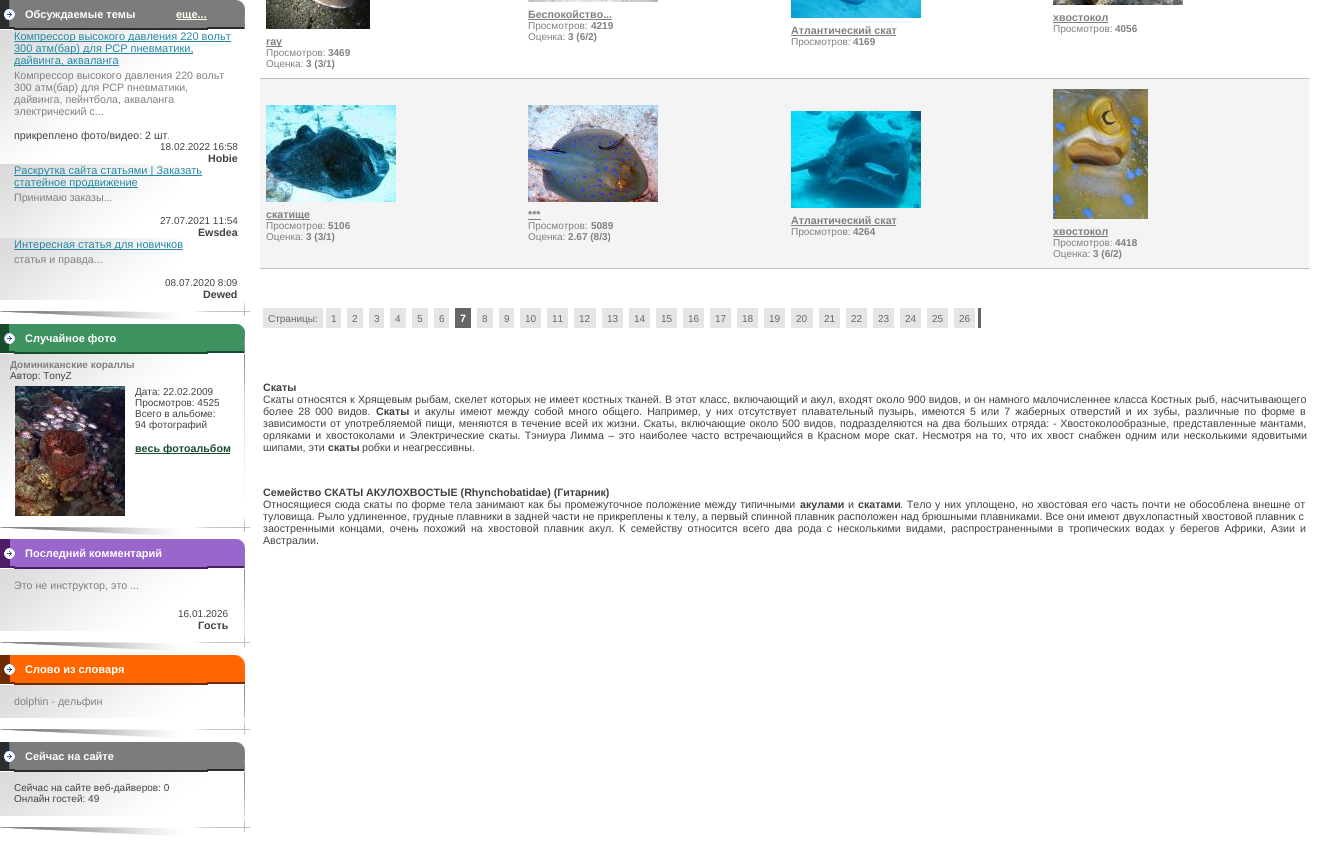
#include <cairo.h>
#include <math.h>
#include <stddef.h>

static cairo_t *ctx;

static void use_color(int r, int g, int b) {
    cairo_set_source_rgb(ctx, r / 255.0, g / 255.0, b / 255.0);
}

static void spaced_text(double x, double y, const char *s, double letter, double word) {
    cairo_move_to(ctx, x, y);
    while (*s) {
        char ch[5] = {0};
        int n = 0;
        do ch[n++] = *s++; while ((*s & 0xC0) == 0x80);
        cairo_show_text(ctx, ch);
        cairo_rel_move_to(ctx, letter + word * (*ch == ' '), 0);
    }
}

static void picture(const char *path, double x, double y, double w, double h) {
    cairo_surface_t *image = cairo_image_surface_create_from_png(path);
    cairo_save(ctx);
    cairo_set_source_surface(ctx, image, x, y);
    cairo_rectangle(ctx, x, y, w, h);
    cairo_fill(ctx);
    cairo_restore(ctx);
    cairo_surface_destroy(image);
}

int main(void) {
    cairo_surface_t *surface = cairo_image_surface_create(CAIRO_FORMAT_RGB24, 1324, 842);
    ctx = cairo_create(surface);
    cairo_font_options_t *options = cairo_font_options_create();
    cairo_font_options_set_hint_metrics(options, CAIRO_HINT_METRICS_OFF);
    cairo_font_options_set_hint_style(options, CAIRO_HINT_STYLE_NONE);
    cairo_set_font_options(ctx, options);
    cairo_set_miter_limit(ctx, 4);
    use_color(255, 255, 255);
    cairo_paint(ctx);
    use_color(124, 124, 124);
    cairo_rectangle(ctx, 15, 0, 192, 28);
    cairo_fill(ctx);
    use_color(44, 44, 44);
    cairo_rectangle(ctx, 14, 28, 194, 2);
    cairo_fill(ctx);
    picture("img1.png", 0, 0, 15, 29);
    cairo_select_font_face(ctx, "Liberation Sans", CAIRO_FONT_SLANT_NORMAL, CAIRO_FONT_WEIGHT_BOLD);
    cairo_set_font_size(ctx, 11);
    use_color(255, 255, 255);
    cairo_move_to(ctx, 25, 18);
    cairo_show_text(ctx, "Обсуждаемые темы");
    use_color(255, 255, 240);
    cairo_rectangle(ctx, 176, 19, 31, 1);
    cairo_fill(ctx);
    cairo_move_to(ctx, 176, 18);
    cairo_show_text(ctx, "еще...");
    picture("img2.png", 207, 0, 43, 29);
    picture("img3.png", 0, 30, 181, 134);
    use_color(36, 135, 166);
    cairo_rectangle(ctx, 14, 41, 217, 1);
    cairo_fill(ctx);
    cairo_select_font_face(ctx, "Liberation Sans", CAIRO_FONT_SLANT_NORMAL, CAIRO_FONT_WEIGHT_NORMAL);
    cairo_move_to(ctx, 14, 40);
    cairo_show_text(ctx, "Компрессор высокого давления 220 вольт");
    cairo_rectangle(ctx, 14, 53, 179, 1);
    cairo_fill(ctx);
    cairo_move_to(ctx, 14, 52);
    cairo_show_text(ctx, "300 атм(бар) для PCP пневматики,");
    cairo_rectangle(ctx, 14, 65, 105, 1);
    cairo_fill(ctx);
    cairo_move_to(ctx, 14, 64);
    cairo_show_text(ctx, "дайвинга, акваланга");
    cairo_set_font_size(ctx, 10.67);
    use_color(128, 128, 128);
    cairo_move_to(ctx, 14, 79);
    cairo_show_text(ctx, "Компрессор высокого давления 220 вольт");
    cairo_move_to(ctx, 14, 91);
    cairo_show_text(ctx, "300 атм(бар) для PCP пневматики,");
    cairo_move_to(ctx, 14, 103);
    cairo_show_text(ctx, "дайвинга, пейнтбола, акваланга");
    cairo_move_to(ctx, 14, 115);
    cairo_show_text(ctx, "электрический c...");
    use_color(65, 65, 65);
    cairo_move_to(ctx, 14, 139);
    cairo_show_text(ctx, "прикреплено фото/видео: 2 шт.");
    cairo_set_font_size(ctx, 10);
    cairo_move_to(ctx, 160, 150);
    cairo_show_text(ctx, "18.02.2022 16:58");
    cairo_select_font_face(ctx, "Liberation Sans", CAIRO_FONT_SLANT_NORMAL, CAIRO_FONT_WEIGHT_BOLD);
    cairo_set_font_size(ctx, 10.67);
    cairo_move_to(ctx, 208, 162);
    cairo_show_text(ctx, "Hobie");
    picture("img4.png", 0, 164, 181, 74);
    use_color(36, 135, 166);
    cairo_rectangle(ctx, 14, 175, 188, 1);
    cairo_fill(ctx);
    cairo_select_font_face(ctx, "Liberation Sans", CAIRO_FONT_SLANT_NORMAL, CAIRO_FONT_WEIGHT_NORMAL);
    cairo_set_font_size(ctx, 11);
    cairo_move_to(ctx, 14, 174);
    cairo_show_text(ctx, "Раскрутка сайта статьями | Заказать");
    cairo_rectangle(ctx, 14, 187, 124, 1);
    cairo_fill(ctx);
    cairo_move_to(ctx, 14, 186);
    cairo_show_text(ctx, "статейное продвижение");
    cairo_set_font_size(ctx, 10.67);
    use_color(128, 128, 128);
    cairo_move_to(ctx, 14, 201);
    cairo_show_text(ctx, "Принимаю заказы...");
    cairo_set_font_size(ctx, 10);
    use_color(65, 65, 65);
    cairo_move_to(ctx, 160, 224);
    cairo_show_text(ctx, "27.07.2021 11:54");
    cairo_select_font_face(ctx, "Liberation Sans", CAIRO_FONT_SLANT_NORMAL, CAIRO_FONT_WEIGHT_BOLD);
    cairo_set_font_size(ctx, 10.67);
    cairo_move_to(ctx, 198, 236);
    cairo_show_text(ctx, "Ewsdea");
    picture("img5.png", 0, 238, 181, 62);
    use_color(36, 135, 166);
    cairo_rectangle(ctx, 14, 249, 169, 1);
    cairo_fill(ctx);
    cairo_select_font_face(ctx, "Liberation Sans", CAIRO_FONT_SLANT_NORMAL, CAIRO_FONT_WEIGHT_NORMAL);
    cairo_set_font_size(ctx, 11);
    cairo_move_to(ctx, 14, 248);
    cairo_show_text(ctx, "Интересная статья для новичков");
    cairo_set_font_size(ctx, 10.67);
    use_color(128, 128, 128);
    cairo_move_to(ctx, 14, 263);
    cairo_show_text(ctx, "статья и правда...");
    cairo_set_font_size(ctx, 10);
    use_color(65, 65, 65);
    cairo_move_to(ctx, 165, 286);
    cairo_show_text(ctx, "08.07.2020 8:09");
    cairo_select_font_face(ctx, "Liberation Sans", CAIRO_FONT_SLANT_NORMAL, CAIRO_FONT_WEIGHT_BOLD);
    cairo_set_font_size(ctx, 10.67);
    cairo_move_to(ctx, 203, 298);
    cairo_show_text(ctx, "Dewed");
    picture("img6.png", 0, 300, 250, 20);
    use_color(61, 146, 95);
    cairo_rectangle(ctx, 15, 324, 192, 28);
    cairo_fill(ctx);
    use_color(23, 77, 45);
    cairo_rectangle(ctx, 14, 352, 194, 2);
    cairo_fill(ctx);
    picture("img7.png", 0, 324, 15, 29);
    cairo_set_font_size(ctx, 11);
    use_color(255, 255, 255);
    cairo_move_to(ctx, 25, 342);
    cairo_show_text(ctx, "Случайное фото");
    picture("img8.png", 207, 324, 43, 29);
    picture("img9.png", 0, 354, 245, 146);
    cairo_set_font_size(ctx, 10);
    use_color(128, 128, 128);
    cairo_move_to(ctx, 10, 368);
    cairo_show_text(ctx, "Доминиканские кораллы");
    cairo_select_font_face(ctx, "Liberation Sans", CAIRO_FONT_SLANT_NORMAL, CAIRO_FONT_WEIGHT_NORMAL);
    use_color(65, 65, 65);
    cairo_move_to(ctx, 10, 379);
    cairo_show_text(ctx, "Автор: TonyZ");
    picture("img10.png", 15, 386, 110, 130);
    cairo_move_to(ctx, 135, 395);
    cairo_show_text(ctx, "Дата: 22.02.2009");
    cairo_move_to(ctx, 135, 406);
    cairo_show_text(ctx, "Просмотров: 4525");
    cairo_move_to(ctx, 135, 417);
    cairo_show_text(ctx, "Всего в альбоме:");
    cairo_move_to(ctx, 135, 428);
    cairo_show_text(ctx, "94 фотографий");
    use_color(23, 77, 45);
    cairo_rectangle(ctx, 135, 453, 95, 1);
    cairo_fill(ctx);
    cairo_select_font_face(ctx, "Liberation Sans", CAIRO_FONT_SLANT_NORMAL, CAIRO_FONT_WEIGHT_BOLD);
    cairo_set_font_size(ctx, 10.67);
    cairo_move_to(ctx, 135, 452);
    cairo_show_text(ctx, "весь фотоальбом");
    picture("img6.png", 0, 516, 250, 20);
    use_color(153, 102, 204);
    cairo_rectangle(ctx, 15, 539, 192, 28);
    cairo_fill(ctx);
    use_color(79, 27, 103);
    cairo_rectangle(ctx, 14, 567, 194, 2);
    cairo_fill(ctx);
    picture("img11.png", 0, 539, 15, 29);
    cairo_set_font_size(ctx, 11);
    use_color(255, 255, 255);
    cairo_move_to(ctx, 25, 557);
    cairo_show_text(ctx, "Последний комментарий");
    picture("img12.png", 207, 539, 43, 29);
    picture("img13.png", 0, 569, 245, 62);
    cairo_select_font_face(ctx, "Liberation Sans", CAIRO_FONT_SLANT_NORMAL, CAIRO_FONT_WEIGHT_NORMAL);
    cairo_set_font_size(ctx, 10.67);
    use_color(128, 128, 128);
    cairo_move_to(ctx, 14, 589);
    cairo_show_text(ctx, "Это не инструктор, это ...");
    cairo_set_font_size(ctx, 10);
    use_color(65, 65, 65);
    cairo_move_to(ctx, 178, 617);
    cairo_show_text(ctx, "16.01.2026");
    cairo_select_font_face(ctx, "Liberation Sans", CAIRO_FONT_SLANT_NORMAL, CAIRO_FONT_WEIGHT_BOLD);
    cairo_set_font_size(ctx, 10.67);
    cairo_move_to(ctx, 198, 629);
    cairo_show_text(ctx, "Гость");
    picture("img6.png", 0, 631, 250, 20);
    use_color(255, 102, 0);
    cairo_rectangle(ctx, 15, 655, 192, 28);
    cairo_fill(ctx);
    use_color(109, 45, 2);
    cairo_rectangle(ctx, 14, 683, 194, 2);
    cairo_fill(ctx);
    picture("img14.png", 0, 655, 15, 29);
    cairo_set_font_size(ctx, 11);
    use_color(255, 255, 255);
    cairo_move_to(ctx, 25, 673);
    cairo_show_text(ctx, "Слово из словаря");
    picture("img15.png", 207, 655, 38, 29);
    picture("img16.png", 0, 685, 245, 33);
    cairo_select_font_face(ctx, "Liberation Sans", CAIRO_FONT_SLANT_NORMAL, CAIRO_FONT_WEIGHT_NORMAL);
    cairo_set_font_size(ctx, 10.67);
    use_color(128, 128, 128);
    cairo_move_to(ctx, 14, 705);
    cairo_show_text(ctx, "dolphin - дельфин");
    picture("img6.png", 0, 718, 250, 20);
    use_color(124, 124, 124);
    cairo_rectangle(ctx, 15, 742, 192, 28);
    cairo_fill(ctx);
    use_color(44, 44, 44);
    cairo_rectangle(ctx, 14, 770, 194, 2);
    cairo_fill(ctx);
    picture("img1.png", 0, 742, 15, 29);
    cairo_select_font_face(ctx, "Liberation Sans", CAIRO_FONT_SLANT_NORMAL, CAIRO_FONT_WEIGHT_BOLD);
    cairo_set_font_size(ctx, 11);
    use_color(255, 255, 255);
    cairo_move_to(ctx, 25, 760);
    cairo_show_text(ctx, "Сейчас на сайте");
    picture("img2.png", 207, 742, 43, 29);
    picture("img17.png", 0, 772, 245, 44);
    cairo_select_font_face(ctx, "Liberation Sans", CAIRO_FONT_SLANT_NORMAL, CAIRO_FONT_WEIGHT_NORMAL);
    cairo_set_font_size(ctx, 10);
    use_color(65, 65, 65);
    cairo_move_to(ctx, 14, 791);
    cairo_show_text(ctx, "Сейчас на сайте веб-дайверов: 0");
    cairo_move_to(ctx, 14, 802);
    cairo_show_text(ctx, "Онлайн гостей: 49");
    picture("img6.png", 0, 816, 250, 20);
    picture("img18.png", 266, 0, 104, 29);
    use_color(128, 128, 128);
    cairo_rectangle(ctx, 266, 46, 16, 1);
    cairo_fill(ctx);
    cairo_select_font_face(ctx, "Liberation Sans", CAIRO_FONT_SLANT_NORMAL, CAIRO_FONT_WEIGHT_BOLD);
    cairo_set_font_size(ctx, 10.67);
    cairo_move_to(ctx, 266, 45);
    cairo_show_text(ctx, "ray");
    cairo_select_font_face(ctx, "Liberation Sans", CAIRO_FONT_SLANT_NORMAL, CAIRO_FONT_WEIGHT_NORMAL);
    cairo_set_font_size(ctx, 10);
    cairo_move_to(ctx, 266, 56);
    cairo_show_text(ctx, "Просмотров:");
    cairo_select_font_face(ctx, "Liberation Sans", CAIRO_FONT_SLANT_NORMAL, CAIRO_FONT_WEIGHT_BOLD);
    cairo_move_to(ctx, 328, 56);
    cairo_show_text(ctx, "3469");
    cairo_select_font_face(ctx, "Liberation Sans", CAIRO_FONT_SLANT_NORMAL, CAIRO_FONT_WEIGHT_NORMAL);
    cairo_move_to(ctx, 266, 67);
    cairo_show_text(ctx, "Оценка:");
    cairo_select_font_face(ctx, "Liberation Sans", CAIRO_FONT_SLANT_NORMAL, CAIRO_FONT_WEIGHT_BOLD);
    cairo_move_to(ctx, 306, 67);
    cairo_show_text(ctx, "3 (3/1)");
    picture("img19.png", 528, 0, 130, 2);
    cairo_set_font_size(ctx, 10.67);
    cairo_move_to(ctx, 528, 18);
    cairo_show_text(ctx, "Беспокойство...");
    cairo_rectangle(ctx, 528, 19, 84, 1);
    cairo_fill(ctx);
    cairo_select_font_face(ctx, "Liberation Sans", CAIRO_FONT_SLANT_NORMAL, CAIRO_FONT_WEIGHT_NORMAL);
    cairo_set_font_size(ctx, 10);
    cairo_move_to(ctx, 528, 29);
    cairo_show_text(ctx, "Просмотров:");
    cairo_select_font_face(ctx, "Liberation Sans", CAIRO_FONT_SLANT_NORMAL, CAIRO_FONT_WEIGHT_BOLD);
    cairo_move_to(ctx, 591, 29);
    cairo_show_text(ctx, "4219");
    cairo_select_font_face(ctx, "Liberation Sans", CAIRO_FONT_SLANT_NORMAL, CAIRO_FONT_WEIGHT_NORMAL);
    cairo_move_to(ctx, 528, 40);
    cairo_show_text(ctx, "Оценка:");
    cairo_select_font_face(ctx, "Liberation Sans", CAIRO_FONT_SLANT_NORMAL, CAIRO_FONT_WEIGHT_BOLD);
    cairo_move_to(ctx, 568, 40);
    cairo_show_text(ctx, "3 (6/2)");
    picture("img20.png", 791, 0, 130, 18);
    cairo_set_font_size(ctx, 10.67);
    cairo_move_to(ctx, 791, 34);
    cairo_show_text(ctx, "Атлантический скат");
    cairo_rectangle(ctx, 791, 35, 105, 1);
    cairo_fill(ctx);
    cairo_select_font_face(ctx, "Liberation Sans", CAIRO_FONT_SLANT_NORMAL, CAIRO_FONT_WEIGHT_NORMAL);
    cairo_set_font_size(ctx, 10);
    cairo_move_to(ctx, 791, 45);
    cairo_show_text(ctx, "Просмотров:");
    cairo_select_font_face(ctx, "Liberation Sans", CAIRO_FONT_SLANT_NORMAL, CAIRO_FONT_WEIGHT_BOLD);
    cairo_move_to(ctx, 853, 45);
    cairo_show_text(ctx, "4169");
    use_color(192, 192, 192);
    cairo_rectangle(ctx, 260, 78, 1050, 1);
    cairo_fill(ctx);
    picture("img21.png", 1053, 0, 130, 5);
    cairo_set_font_size(ctx, 10.67);
    use_color(128, 128, 128);
    cairo_move_to(ctx, 1053, 21);
    cairo_show_text(ctx, "хвостокол");
    cairo_rectangle(ctx, 1053, 22, 55, 1);
    cairo_fill(ctx);
    cairo_select_font_face(ctx, "Liberation Sans", CAIRO_FONT_SLANT_NORMAL, CAIRO_FONT_WEIGHT_NORMAL);
    cairo_set_font_size(ctx, 10);
    cairo_move_to(ctx, 1053, 32);
    cairo_show_text(ctx, "Просмотров:");
    cairo_select_font_face(ctx, "Liberation Sans", CAIRO_FONT_SLANT_NORMAL, CAIRO_FONT_WEIGHT_BOLD);
    cairo_move_to(ctx, 1115, 32);
    cairo_show_text(ctx, "4056");
    use_color(244, 244, 244);
    cairo_rectangle(ctx, 260, 79, 1049, 189);
    cairo_fill(ctx);
    picture("img22.png", 266, 105, 130, 97);
    use_color(128, 128, 128);
    cairo_rectangle(ctx, 266, 219, 44, 1);
    cairo_fill(ctx);
    cairo_set_font_size(ctx, 10.67);
    cairo_move_to(ctx, 266, 218);
    cairo_show_text(ctx, "скатище");
    cairo_select_font_face(ctx, "Liberation Sans", CAIRO_FONT_SLANT_NORMAL, CAIRO_FONT_WEIGHT_NORMAL);
    cairo_set_font_size(ctx, 10);
    cairo_move_to(ctx, 266, 229);
    cairo_show_text(ctx, "Просмотров:");
    cairo_select_font_face(ctx, "Liberation Sans", CAIRO_FONT_SLANT_NORMAL, CAIRO_FONT_WEIGHT_BOLD);
    cairo_move_to(ctx, 328, 229);
    cairo_show_text(ctx, "5106");
    cairo_select_font_face(ctx, "Liberation Sans", CAIRO_FONT_SLANT_NORMAL, CAIRO_FONT_WEIGHT_NORMAL);
    cairo_move_to(ctx, 266, 240);
    cairo_show_text(ctx, "Оценка:");
    cairo_select_font_face(ctx, "Liberation Sans", CAIRO_FONT_SLANT_NORMAL, CAIRO_FONT_WEIGHT_BOLD);
    cairo_move_to(ctx, 306, 240);
    cairo_show_text(ctx, "3 (3/1)");
    picture("img23.png", 528, 105, 130, 97);
    cairo_set_font_size(ctx, 10.67);
    cairo_move_to(ctx, 528, 218);
    cairo_show_text(ctx, "***");
    cairo_rectangle(ctx, 528, 219, 13, 1);
    cairo_fill(ctx);
    cairo_select_font_face(ctx, "Liberation Sans", CAIRO_FONT_SLANT_NORMAL, CAIRO_FONT_WEIGHT_NORMAL);
    cairo_set_font_size(ctx, 10);
    cairo_move_to(ctx, 528, 229);
    cairo_show_text(ctx, "Просмотров:");
    cairo_select_font_face(ctx, "Liberation Sans", CAIRO_FONT_SLANT_NORMAL, CAIRO_FONT_WEIGHT_BOLD);
    cairo_move_to(ctx, 591, 229);
    cairo_show_text(ctx, "5089");
    cairo_select_font_face(ctx, "Liberation Sans", CAIRO_FONT_SLANT_NORMAL, CAIRO_FONT_WEIGHT_NORMAL);
    cairo_move_to(ctx, 528, 240);
    cairo_show_text(ctx, "Оценка:");
    cairo_select_font_face(ctx, "Liberation Sans", CAIRO_FONT_SLANT_NORMAL, CAIRO_FONT_WEIGHT_BOLD);
    cairo_move_to(ctx, 568, 240);
    cairo_show_text(ctx, "2.67 (8/3)");
    picture("img24.png", 791, 111, 130, 97);
    cairo_set_font_size(ctx, 10.67);
    cairo_move_to(ctx, 791, 224);
    cairo_show_text(ctx, "Атлантический скат");
    cairo_rectangle(ctx, 791, 225, 105, 1);
    cairo_fill(ctx);
    cairo_select_font_face(ctx, "Liberation Sans", CAIRO_FONT_SLANT_NORMAL, CAIRO_FONT_WEIGHT_NORMAL);
    cairo_set_font_size(ctx, 10);
    cairo_move_to(ctx, 791, 235);
    cairo_show_text(ctx, "Просмотров:");
    cairo_select_font_face(ctx, "Liberation Sans", CAIRO_FONT_SLANT_NORMAL, CAIRO_FONT_WEIGHT_BOLD);
    cairo_move_to(ctx, 853, 235);
    cairo_show_text(ctx, "4264");
    use_color(192, 192, 192);
    cairo_rectangle(ctx, 260, 268, 1050, 1);
    cairo_fill(ctx);
    picture("img25.png", 1053, 89, 95, 130);
    cairo_set_font_size(ctx, 10.67);
    use_color(128, 128, 128);
    cairo_move_to(ctx, 1053, 235);
    cairo_show_text(ctx, "хвостокол");
    cairo_rectangle(ctx, 1053, 236, 55, 1);
    cairo_fill(ctx);
    cairo_select_font_face(ctx, "Liberation Sans", CAIRO_FONT_SLANT_NORMAL, CAIRO_FONT_WEIGHT_NORMAL);
    cairo_set_font_size(ctx, 10);
    cairo_move_to(ctx, 1053, 246);
    cairo_show_text(ctx, "Просмотров:");
    cairo_select_font_face(ctx, "Liberation Sans", CAIRO_FONT_SLANT_NORMAL, CAIRO_FONT_WEIGHT_BOLD);
    cairo_move_to(ctx, 1115, 246);
    cairo_show_text(ctx, "4418");
    cairo_select_font_face(ctx, "Liberation Sans", CAIRO_FONT_SLANT_NORMAL, CAIRO_FONT_WEIGHT_NORMAL);
    cairo_move_to(ctx, 1053, 257);
    cairo_show_text(ctx, "Оценка:");
    cairo_select_font_face(ctx, "Liberation Sans", CAIRO_FONT_SLANT_NORMAL, CAIRO_FONT_WEIGHT_BOLD);
    cairo_move_to(ctx, 1093, 257);
    cairo_show_text(ctx, "3 (6/2)");
    use_color(229, 229, 229);
    cairo_rectangle(ctx, 263, 308, 712, 20);
    cairo_fill(ctx);
    cairo_select_font_face(ctx, "Liberation Sans", CAIRO_FONT_SLANT_NORMAL, CAIRO_FONT_WEIGHT_NORMAL);
    use_color(102, 102, 102);
    cairo_move_to(ctx, 268, 322);
    cairo_show_text(ctx, "Страницы:");
    use_color(255, 255, 255);
    cairo_rectangle(ctx, 323, 308, 3, 20);
    cairo_fill(ctx);
    use_color(102, 102, 102);
    cairo_move_to(ctx, 331, 322);
    cairo_show_text(ctx, "1");
    use_color(255, 255, 255);
    cairo_rectangle(ctx, 341, 308, 6, 20);
    cairo_fill(ctx);
    use_color(102, 102, 102);
    cairo_move_to(ctx, 352, 322);
    cairo_show_text(ctx, "2");
    use_color(255, 255, 255);
    cairo_rectangle(ctx, 363, 308, 6, 20);
    cairo_fill(ctx);
    use_color(102, 102, 102);
    cairo_move_to(ctx, 374, 322);
    cairo_show_text(ctx, "3");
    use_color(255, 255, 255);
    cairo_rectangle(ctx, 384, 308, 6, 20);
    cairo_fill(ctx);
    use_color(102, 102, 102);
    cairo_move_to(ctx, 395, 322);
    cairo_show_text(ctx, "4");
    use_color(255, 255, 255);
    cairo_rectangle(ctx, 406, 308, 6, 20);
    cairo_fill(ctx);
    use_color(102, 102, 102);
    cairo_move_to(ctx, 417, 322);
    cairo_show_text(ctx, "5");
    use_color(255, 255, 255);
    cairo_rectangle(ctx, 428, 308, 6, 20);
    cairo_fill(ctx);
    use_color(102, 102, 102);
    cairo_move_to(ctx, 439, 322);
    cairo_show_text(ctx, "6");
    use_color(255, 255, 255);
    cairo_rectangle(ctx, 449, 308, 6, 20);
    cairo_fill(ctx);
    use_color(102, 102, 102);
    cairo_rectangle(ctx, 455, 308, 16, 20);
    cairo_fill(ctx);
    cairo_select_font_face(ctx, "Liberation Sans", CAIRO_FONT_SLANT_NORMAL, CAIRO_FONT_WEIGHT_BOLD);
    cairo_set_font_size(ctx, 10.67);
    use_color(255, 255, 255);
    cairo_move_to(ctx, 460, 322);
    cairo_show_text(ctx, "7");
    cairo_rectangle(ctx, 471, 308, 6, 20);
    cairo_fill(ctx);
    cairo_select_font_face(ctx, "Liberation Sans", CAIRO_FONT_SLANT_NORMAL, CAIRO_FONT_WEIGHT_NORMAL);
    cairo_set_font_size(ctx, 10);
    use_color(102, 102, 102);
    cairo_move_to(ctx, 482, 322);
    cairo_show_text(ctx, "8");
    use_color(255, 255, 255);
    cairo_rectangle(ctx, 493, 308, 6, 20);
    cairo_fill(ctx);
    use_color(102, 102, 102);
    cairo_move_to(ctx, 504, 322);
    cairo_show_text(ctx, "9");
    use_color(255, 255, 255);
    cairo_rectangle(ctx, 514, 308, 6, 20);
    cairo_fill(ctx);
    use_color(102, 102, 102);
    cairo_move_to(ctx, 525, 322);
    cairo_show_text(ctx, "10");
    use_color(255, 255, 255);
    cairo_rectangle(ctx, 541, 308, 6, 20);
    cairo_fill(ctx);
    use_color(102, 102, 102);
    cairo_move_to(ctx, 552, 322);
    cairo_show_text(ctx, "11");
    use_color(255, 255, 255);
    cairo_rectangle(ctx, 568, 308, 6, 20);
    cairo_fill(ctx);
    use_color(102, 102, 102);
    cairo_move_to(ctx, 579, 322);
    cairo_show_text(ctx, "12");
    use_color(255, 255, 255);
    cairo_rectangle(ctx, 596, 308, 6, 20);
    cairo_fill(ctx);
    use_color(102, 102, 102);
    cairo_move_to(ctx, 607, 322);
    cairo_show_text(ctx, "13");
    use_color(255, 255, 255);
    cairo_rectangle(ctx, 623, 308, 6, 20);
    cairo_fill(ctx);
    use_color(102, 102, 102);
    cairo_move_to(ctx, 634, 322);
    cairo_show_text(ctx, "14");
    use_color(255, 255, 255);
    cairo_rectangle(ctx, 650, 308, 6, 20);
    cairo_fill(ctx);
    use_color(102, 102, 102);
    cairo_move_to(ctx, 661, 322);
    cairo_show_text(ctx, "15");
    use_color(255, 255, 255);
    cairo_rectangle(ctx, 677, 308, 6, 20);
    cairo_fill(ctx);
    use_color(102, 102, 102);
    cairo_move_to(ctx, 688, 322);
    cairo_show_text(ctx, "16");
    use_color(255, 255, 255);
    cairo_rectangle(ctx, 704, 308, 6, 20);
    cairo_fill(ctx);
    use_color(102, 102, 102);
    cairo_move_to(ctx, 715, 322);
    cairo_show_text(ctx, "17");
    use_color(255, 255, 255);
    cairo_rectangle(ctx, 731, 308, 6, 20);
    cairo_fill(ctx);
    use_color(102, 102, 102);
    cairo_move_to(ctx, 742, 322);
    cairo_show_text(ctx, "18");
    use_color(255, 255, 255);
    cairo_rectangle(ctx, 758, 308, 6, 20);
    cairo_fill(ctx);
    use_color(102, 102, 102);
    cairo_move_to(ctx, 769, 322);
    cairo_show_text(ctx, "19");
    use_color(255, 255, 255);
    cairo_rectangle(ctx, 785, 308, 6, 20);
    cairo_fill(ctx);
    use_color(102, 102, 102);
    cairo_move_to(ctx, 796, 322);
    cairo_show_text(ctx, "20");
    use_color(255, 255, 255);
    cairo_rectangle(ctx, 813, 308, 6, 20);
    cairo_fill(ctx);
    use_color(102, 102, 102);
    cairo_move_to(ctx, 824, 322);
    cairo_show_text(ctx, "21");
    use_color(255, 255, 255);
    cairo_rectangle(ctx, 840, 308, 6, 20);
    cairo_fill(ctx);
    use_color(102, 102, 102);
    cairo_move_to(ctx, 851, 322);
    cairo_show_text(ctx, "22");
    use_color(255, 255, 255);
    cairo_rectangle(ctx, 867, 308, 6, 20);
    cairo_fill(ctx);
    use_color(102, 102, 102);
    cairo_move_to(ctx, 878, 322);
    cairo_show_text(ctx, "23");
    use_color(255, 255, 255);
    cairo_rectangle(ctx, 894, 308, 6, 20);
    cairo_fill(ctx);
    use_color(102, 102, 102);
    cairo_move_to(ctx, 905, 322);
    cairo_show_text(ctx, "24");
    use_color(255, 255, 255);
    cairo_rectangle(ctx, 921, 308, 6, 20);
    cairo_fill(ctx);
    use_color(102, 102, 102);
    cairo_move_to(ctx, 932, 322);
    cairo_show_text(ctx, "25");
    use_color(255, 255, 255);
    cairo_rectangle(ctx, 948, 308, 6, 20);
    cairo_fill(ctx);
    use_color(102, 102, 102);
    cairo_move_to(ctx, 959, 322);
    cairo_show_text(ctx, "26");
    cairo_rectangle(ctx, 978, 308, 3, 20);
    cairo_fill(ctx);
    cairo_select_font_face(ctx, "Liberation Sans", CAIRO_FONT_SLANT_NORMAL, CAIRO_FONT_WEIGHT_BOLD);
    cairo_set_font_size(ctx, 10.67);
    use_color(65, 65, 65);
    cairo_move_to(ctx, 263, 391);
    cairo_show_text(ctx, "Скаты");
    cairo_select_font_face(ctx, "Liberation Sans", CAIRO_FONT_SLANT_NORMAL, CAIRO_FONT_WEIGHT_NORMAL);
    spaced_text(263, 403, "Скаты относятся к Хрящевым рыбам, скелет которых не имеет костных тканей. В этот класс, включающий и акул, входят около 900 видов, и он намного малочисленнее класса Костных рыб, насчитывающего", 0, 0.25);
    spaced_text(263, 415, "более 28 000 видов.", 0, 2.1);
    cairo_select_font_face(ctx, "Liberation Sans", CAIRO_FONT_SLANT_NORMAL, CAIRO_FONT_WEIGHT_BOLD);
    cairo_move_to(ctx, 376, 415);
    cairo_show_text(ctx, "Скаты");
    cairo_select_font_face(ctx, "Liberation Sans", CAIRO_FONT_SLANT_NORMAL, CAIRO_FONT_WEIGHT_NORMAL);
    spaced_text(414, 415, "и акулы имеют между собой много общего. Например, у них отсутствует плавательный пузырь, имеются 5 или 7 жаберных отверстий и их зубы, различные по форме в", 0, 2.1);
    spaced_text(263, 427, "зависимости от употребляемой пищи, меняются в течение всей их жизни. Скаты, включающие около 500 видов, подразделяются на два больших отряда: - Хвостоколообразные, представленные мантами,", 0, 0.85);
    spaced_text(263, 439, "орляками и хвостоколами и Электрические скаты. Тэниура Лимма – это наиболее часто встречающийся в Красном море скат. Несмотря на то, что их хвост снабжен одним или несколькими ядовитыми", 0, 1.5);
    cairo_move_to(ctx, 263, 451);
    cairo_show_text(ctx, "шипами, эти");
    cairo_select_font_face(ctx, "Liberation Sans", CAIRO_FONT_SLANT_NORMAL, CAIRO_FONT_WEIGHT_BOLD);
    cairo_move_to(ctx, 328, 451);
    cairo_show_text(ctx, "скаты");
    cairo_select_font_face(ctx, "Liberation Sans", CAIRO_FONT_SLANT_NORMAL, CAIRO_FONT_WEIGHT_NORMAL);
    cairo_move_to(ctx, 362, 451);
    cairo_show_text(ctx, "робки и неагрессивны.");
    cairo_select_font_face(ctx, "Liberation Sans", CAIRO_FONT_SLANT_NORMAL, CAIRO_FONT_WEIGHT_BOLD);
    cairo_move_to(ctx, 263, 496);
    cairo_show_text(ctx, "Семейство СКАТЫ АКУЛОХВОСТЫЕ (Rhynchobatidae) (Гитарник)");
    cairo_select_font_face(ctx, "Liberation Sans", CAIRO_FONT_SLANT_NORMAL, CAIRO_FONT_WEIGHT_NORMAL);
    spaced_text(263, 508, "Относящиеся сюда скаты по форме тела занимают как бы промежуточное положение между типичными", 0, 0.75);
    cairo_select_font_face(ctx, "Liberation Sans", CAIRO_FONT_SLANT_NORMAL, CAIRO_FONT_WEIGHT_BOLD);
    cairo_move_to(ctx, 800, 508);
    cairo_show_text(ctx, "акулами");
    cairo_select_font_face(ctx, "Liberation Sans", CAIRO_FONT_SLANT_NORMAL, CAIRO_FONT_WEIGHT_NORMAL);
    cairo_move_to(ctx, 848, 508);
    cairo_show_text(ctx, "и");
    cairo_select_font_face(ctx, "Liberation Sans", CAIRO_FONT_SLANT_NORMAL, CAIRO_FONT_WEIGHT_BOLD);
    cairo_move_to(ctx, 858, 508);
    cairo_show_text(ctx, "скатами");
    cairo_select_font_face(ctx, "Liberation Sans", CAIRO_FONT_SLANT_NORMAL, CAIRO_FONT_WEIGHT_NORMAL);
    spaced_text(900, 508, ". Тело у них уплощено, но хвостовая его часть почти не обособлена внешне от", 0, 0.8);
    cairo_move_to(ctx, 263, 520);
    cairo_show_text(ctx, "туловища. Рыло удлиненное, грудные плавники в задней части не прикреплены к телу, а первый спинной плавник расположен над брюшными плавниками. Все они имеют двухлопастный хвостовой плавник с");
    spaced_text(263, 532, "заостренными концами, очень похожий на хвостовой плавник акул. К семейству относится всего два рода с несколькими видами, распространенными в тропических водах у берегов Африки, Азии и", 0, 2.2);
    cairo_move_to(ctx, 263, 544);
    cairo_show_text(ctx, "Австралии.");
    cairo_surface_write_to_png(surface, "result.png");
    cairo_font_options_destroy(options);
    cairo_destroy(ctx);
    cairo_surface_destroy(surface);
    return 0;
}
